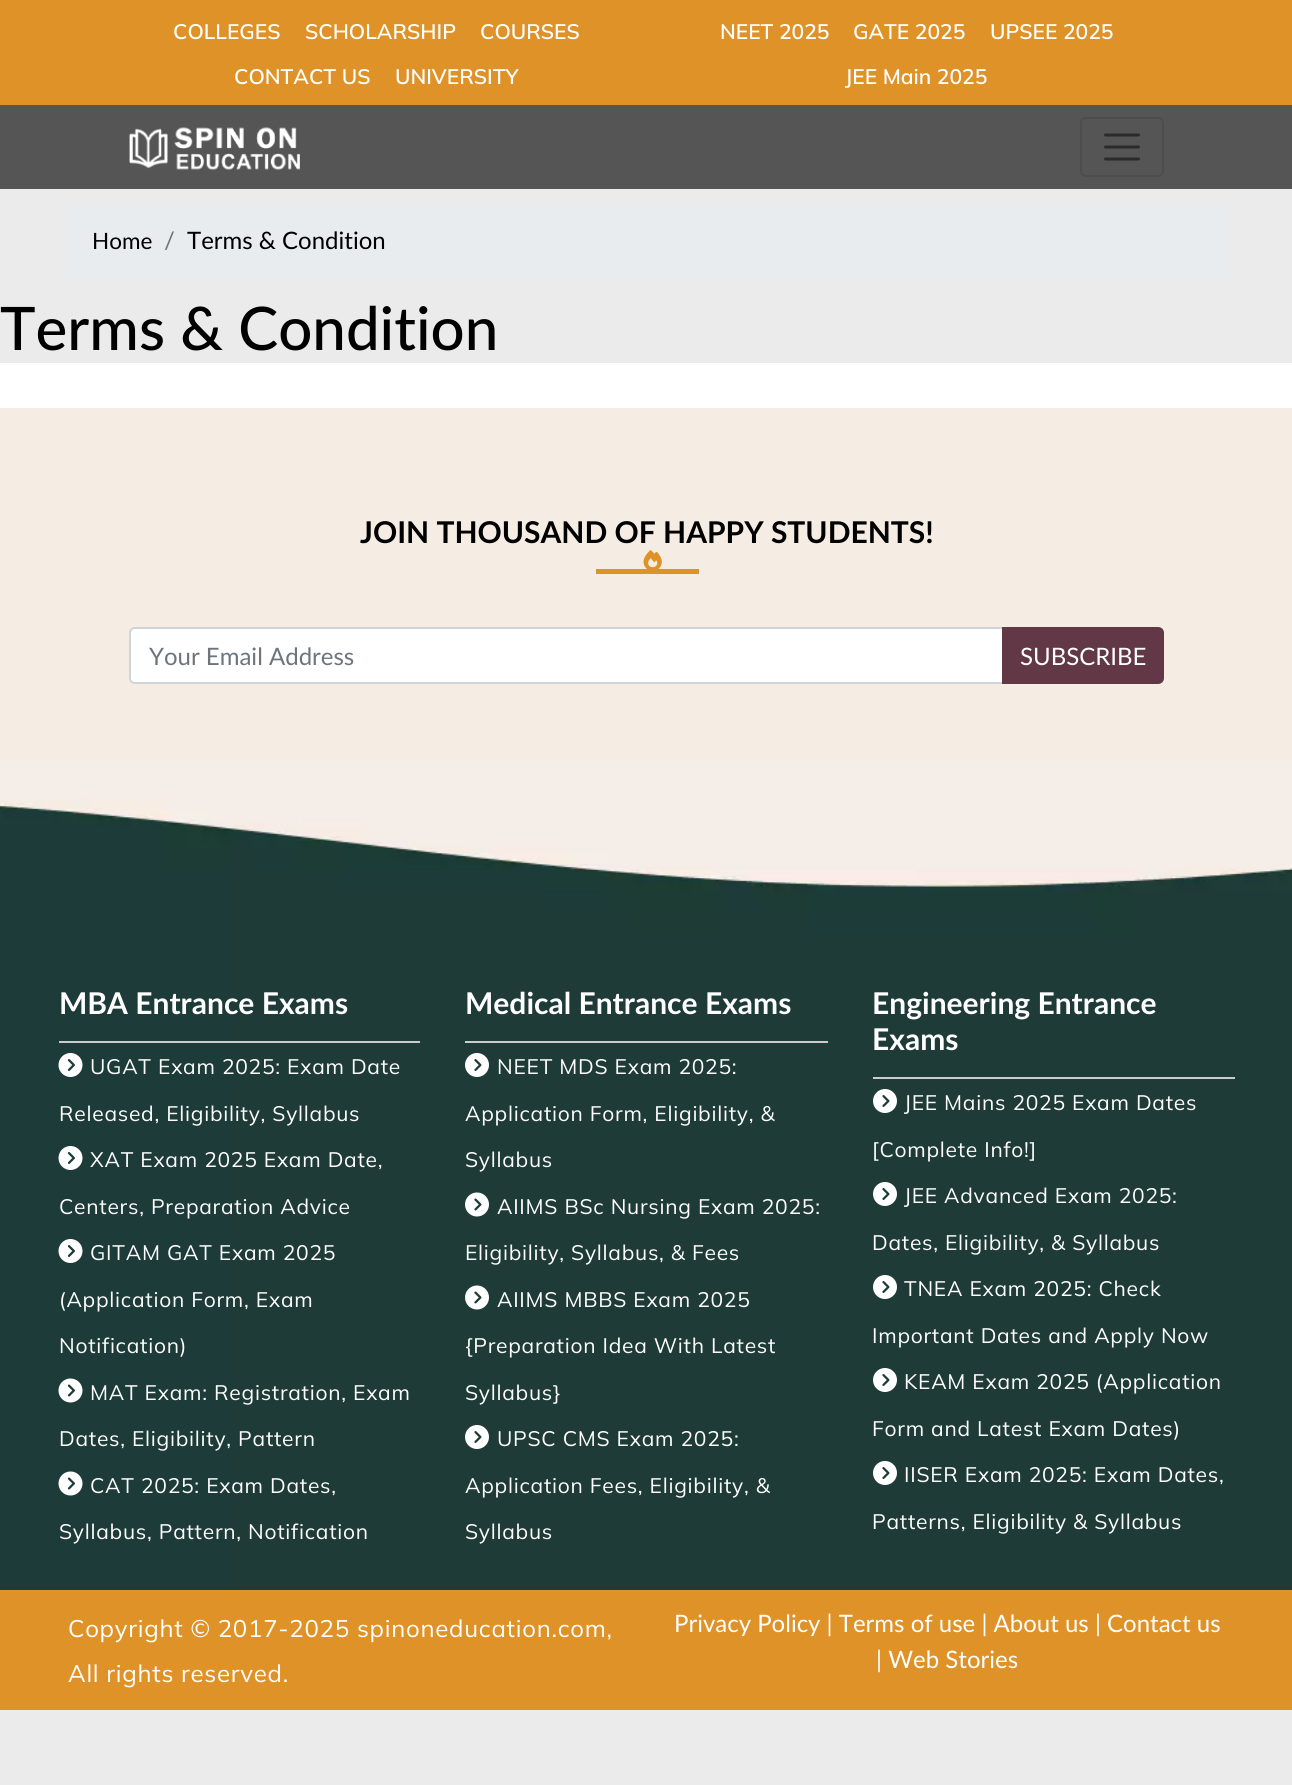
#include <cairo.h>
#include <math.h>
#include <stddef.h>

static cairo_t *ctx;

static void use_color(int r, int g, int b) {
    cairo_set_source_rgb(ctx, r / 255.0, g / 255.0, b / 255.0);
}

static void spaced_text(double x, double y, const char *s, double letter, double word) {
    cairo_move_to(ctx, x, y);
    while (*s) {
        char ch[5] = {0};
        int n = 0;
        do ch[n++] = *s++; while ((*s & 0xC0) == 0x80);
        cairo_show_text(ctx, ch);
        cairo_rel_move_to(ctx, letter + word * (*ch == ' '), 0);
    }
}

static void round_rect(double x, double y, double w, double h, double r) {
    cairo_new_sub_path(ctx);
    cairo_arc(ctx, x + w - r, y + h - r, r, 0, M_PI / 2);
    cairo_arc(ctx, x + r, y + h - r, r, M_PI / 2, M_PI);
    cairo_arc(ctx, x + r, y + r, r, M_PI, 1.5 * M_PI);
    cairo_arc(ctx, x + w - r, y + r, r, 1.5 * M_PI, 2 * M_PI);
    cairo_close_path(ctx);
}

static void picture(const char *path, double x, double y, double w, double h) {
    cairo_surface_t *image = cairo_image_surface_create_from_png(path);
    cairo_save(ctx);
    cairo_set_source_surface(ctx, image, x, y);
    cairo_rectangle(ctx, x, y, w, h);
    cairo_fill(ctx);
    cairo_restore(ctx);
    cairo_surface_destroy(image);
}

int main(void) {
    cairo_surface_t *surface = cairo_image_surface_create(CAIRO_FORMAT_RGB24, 1292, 1785);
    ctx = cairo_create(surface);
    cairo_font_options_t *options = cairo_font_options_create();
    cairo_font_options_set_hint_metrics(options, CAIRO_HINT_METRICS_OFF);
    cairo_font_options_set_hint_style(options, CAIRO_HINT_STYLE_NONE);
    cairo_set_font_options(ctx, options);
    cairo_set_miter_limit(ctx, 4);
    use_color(235, 235, 235);
    cairo_paint(ctx);
    use_color(223, 146, 39);
    cairo_rectangle(ctx, 0, 0, 1292, 105);
    cairo_fill(ctx);
    cairo_select_font_face(ctx, "Mulish SemiBold", CAIRO_FONT_SLANT_NORMAL, CAIRO_FONT_WEIGHT_NORMAL);
    cairo_set_font_size(ctx, 21);
    use_color(255, 255, 255);
    cairo_move_to(ctx, 173, 39);
    cairo_show_text(ctx, "COLLEGES");
    cairo_move_to(ctx, 305, 39);
    cairo_show_text(ctx, "SCHOLARSHIP");
    cairo_move_to(ctx, 480, 39);
    cairo_show_text(ctx, "COURSES");
    cairo_move_to(ctx, 234, 84);
    cairo_show_text(ctx, "CONTACT US");
    cairo_move_to(ctx, 395, 84);
    cairo_show_text(ctx, "UNIVERSITY");
    cairo_move_to(ctx, 720, 39);
    cairo_show_text(ctx, "NEET 2025");
    cairo_move_to(ctx, 853, 39);
    cairo_show_text(ctx, "GATE 2025");
    cairo_move_to(ctx, 990, 39);
    cairo_show_text(ctx, "UPSEE 2025");
    cairo_move_to(ctx, 845, 84);
    cairo_show_text(ctx, "JEE Main 2025");
    use_color(85, 85, 85);
    cairo_rectangle(ctx, 0, 105, 1292, 84);
    cairo_fill(ctx);
    picture("img1.png", 129, 127, 171, 43);
    round_rect(1081, 118, 82, 58, 5);
    use_color(77, 77, 77);
    cairo_stroke(ctx);
    cairo_new_path(ctx);
    cairo_move_to(ctx, 1105.5, 135);
    cairo_line_to(ctx, 1138.5, 135);
    cairo_move_to(ctx, 1105.5, 147);
    cairo_line_to(ctx, 1138.5, 147);
    cairo_move_to(ctx, 1105.5, 159);
    cairo_line_to(ctx, 1138.5, 159);
    use_color(43, 43, 43);
    cairo_set_line_width(ctx, 3);
    cairo_set_line_cap(ctx, CAIRO_LINE_CAP_ROUND);
    cairo_stroke(ctx);
    use_color(233, 236, 239);
    round_rect(68, 204, 1158, 72, 6);
    cairo_fill(ctx);
    cairo_select_font_face(ctx, "Lato", CAIRO_FONT_SLANT_NORMAL, CAIRO_FONT_WEIGHT_NORMAL);
    cairo_set_font_size(ctx, 22.5);
    use_color(0, 0, 0);
    cairo_move_to(ctx, 92, 249);
    cairo_show_text(ctx, "Home");
    cairo_set_font_size(ctx, 24);
    use_color(108, 117, 125);
    cairo_move_to(ctx, 164, 249);
    cairo_show_text(ctx, "/");
    use_color(0, 0, 0);
    cairo_move_to(ctx, 187, 249);
    cairo_show_text(ctx, "Terms & Condition");
    cairo_select_font_face(ctx, "Lato Medium", CAIRO_FONT_SLANT_NORMAL, CAIRO_FONT_WEIGHT_NORMAL);
    cairo_set_font_size(ctx, 60);
    cairo_move_to(ctx, 0, 350);
    cairo_show_text(ctx, "Terms & Condition");
    use_color(255, 255, 255);
    cairo_rectangle(ctx, 0, 363, 1292, 45);
    cairo_fill(ctx);
    use_color(245, 237, 227);
    cairo_rectangle(ctx, 0, 408, 1292, 351);
    cairo_fill(ctx);
    cairo_select_font_face(ctx, "Lato", CAIRO_FONT_SLANT_NORMAL, CAIRO_FONT_WEIGHT_BOLD);
    cairo_set_font_size(ctx, 30);
    use_color(0, 0, 0);
    cairo_move_to(ctx, 360, 543);
    cairo_show_text(ctx, "JOIN THOUSAND OF HAPPY STUDENTS!");
    picture("img2.png", 643, 550, 19, 19);
    use_color(223, 146, 39);
    cairo_rectangle(ctx, 596, 569, 103, 5);
    cairo_fill(ctx);
    use_color(255, 255, 255);
    cairo_new_path(ctx);
    cairo_move_to(ctx, 135, 628);
    cairo_line_to(ctx, 1003, 628);
    cairo_line_to(ctx, 1003, 683);
    cairo_line_to(ctx, 135, 683);
    cairo_curve_to(ctx, 132, 683, 130, 681, 130, 678);
    cairo_line_to(ctx, 130, 633);
    cairo_curve_to(ctx, 130, 630, 132, 628, 135, 628);
    cairo_close_path(ctx);
    cairo_fill_preserve(ctx);
    use_color(206, 212, 218);
    cairo_set_line_width(ctx, 2);
    cairo_set_line_cap(ctx, CAIRO_LINE_CAP_BUTT);
    cairo_stroke(ctx);
    cairo_select_font_face(ctx, "Lato", CAIRO_FONT_SLANT_NORMAL, CAIRO_FONT_WEIGHT_NORMAL);
    cairo_set_font_size(ctx, 24);
    use_color(108, 117, 125);
    cairo_move_to(ctx, 149, 665);
    cairo_show_text(ctx, "Your Email Address");
    use_color(98, 55, 70);
    cairo_new_path(ctx);
    cairo_move_to(ctx, 1002, 627);
    cairo_line_to(ctx, 1158, 627);
    cairo_curve_to(ctx, 1161.5, 627, 1164, 629.5, 1164, 633);
    cairo_line_to(ctx, 1164, 678);
    cairo_curve_to(ctx, 1164, 681.5, 1161.5, 684, 1158, 684);
    cairo_line_to(ctx, 1002, 684);
    cairo_close_path(ctx);
    cairo_fill(ctx);
    use_color(255, 255, 255);
    cairo_move_to(ctx, 1020, 665);
    cairo_show_text(ctx, "SUBSCRIBE");
    picture("img3.png", 0, 759, 1292, 831);
    use_color(204, 204, 204);
    cairo_rectangle(ctx, 59, 1041, 361, 2);
    cairo_fill(ctx);
    cairo_select_font_face(ctx, "Lato", CAIRO_FONT_SLANT_NORMAL, CAIRO_FONT_WEIGHT_BOLD);
    cairo_set_font_size(ctx, 30);
    use_color(255, 255, 255);
    cairo_move_to(ctx, 59, 1014);
    cairo_show_text(ctx, "MBA Entrance Exams");
    picture("img4.png", 58, 1053, 25, 24);
    cairo_select_font_face(ctx, "Mulish", CAIRO_FONT_SLANT_NORMAL, CAIRO_FONT_WEIGHT_NORMAL);
    cairo_set_font_size(ctx, 21);
    spaced_text(90, 1074, "UGAT Exam 2025: Exam Date", 0.75, 0);
    spaced_text(59, 1121, "Released, Eligibility, Syllabus", 0.75, 0);
    picture("img4.png", 58, 1146, 25, 24);
    spaced_text(90, 1167, "XAT Exam 2025 Exam Date,", 0.75, 0);
    spaced_text(59, 1214, "Centers, Preparation Advice", 0.75, 0);
    picture("img4.png", 58, 1239, 25, 24);
    spaced_text(90, 1260, "GITAM GAT Exam 2025", 0.75, 0);
    spaced_text(59, 1307, "(Application Form, Exam", 0.75, 0);
    spaced_text(59, 1353, "Notification)", 0.75, 0);
    picture("img5.png", 58, 1378, 25, 25);
    spaced_text(90, 1400, "MAT Exam: Registration, Exam", 0.75, 0);
    spaced_text(59, 1446, "Dates, Eligibility, Pattern", 0.75, 0);
    picture("img5.png", 58, 1471, 25, 25);
    spaced_text(90, 1493, "CAT 2025: Exam Dates,", 0.75, 0);
    spaced_text(59, 1539, "Syllabus, Pattern, Notification", 0.75, 0);
    use_color(204, 204, 204);
    cairo_rectangle(ctx, 465, 1041, 363, 2);
    cairo_fill(ctx);
    cairo_select_font_face(ctx, "Lato", CAIRO_FONT_SLANT_NORMAL, CAIRO_FONT_WEIGHT_BOLD);
    cairo_set_font_size(ctx, 30);
    use_color(255, 255, 255);
    cairo_move_to(ctx, 465, 1014);
    cairo_show_text(ctx, "Medical Entrance Exams");
    picture("img6.png", 465, 1053, 24, 24);
    cairo_select_font_face(ctx, "Mulish", CAIRO_FONT_SLANT_NORMAL, CAIRO_FONT_WEIGHT_NORMAL);
    cairo_set_font_size(ctx, 21);
    spaced_text(497, 1074, "NEET MDS Exam 2025:", 0.75, 0);
    spaced_text(465, 1121, "Application Form, Eligibility, &", 0.75, 0);
    spaced_text(465, 1167, "Syllabus", 0.75, 0);
    picture("img7.png", 465, 1192, 24, 25);
    spaced_text(497, 1214, "AIIMS BSc Nursing Exam 2025:", 0.75, 0);
    spaced_text(465, 1260, "Eligibility, Syllabus, & Fees", 0.75, 0);
    picture("img7.png", 465, 1285, 24, 25);
    spaced_text(497, 1307, "AIIMS MBBS Exam 2025", 0.75, 0);
    spaced_text(465, 1353, "{Preparation Idea With Latest", 0.75, 0);
    spaced_text(465, 1400, "Syllabus}", 0.75, 0);
    picture("img6.png", 465, 1425, 24, 24);
    spaced_text(497, 1446, "UPSC CMS Exam 2025:", 0.75, 0);
    spaced_text(465, 1493, "Application Fees, Eligibility, &", 0.75, 0);
    spaced_text(465, 1539, "Syllabus", 0.75, 0);
    use_color(204, 204, 204);
    cairo_rectangle(ctx, 873, 1077, 362, 2);
    cairo_fill(ctx);
    cairo_select_font_face(ctx, "Lato", CAIRO_FONT_SLANT_NORMAL, CAIRO_FONT_WEIGHT_BOLD);
    cairo_set_font_size(ctx, 30);
    use_color(255, 255, 255);
    cairo_move_to(ctx, 872, 1014);
    cairo_show_text(ctx, "Engineering Entrance");
    cairo_move_to(ctx, 872, 1050);
    cairo_show_text(ctx, "Exams");
    picture("img6.png", 873, 1089, 24, 24);
    cairo_select_font_face(ctx, "Mulish", CAIRO_FONT_SLANT_NORMAL, CAIRO_FONT_WEIGHT_NORMAL);
    cairo_set_font_size(ctx, 21);
    spaced_text(904, 1110, "JEE Mains 2025 Exam Dates", 0.75, 0);
    spaced_text(872, 1157, "[Complete Info!]", 0.75, 0);
    picture("img6.png", 873, 1182, 24, 24);
    spaced_text(904, 1203, "JEE Advanced Exam 2025:", 0.75, 0);
    spaced_text(872, 1250, "Dates, Eligibility, & Syllabus", 0.75, 0);
    picture("img6.png", 873, 1275, 24, 24);
    spaced_text(904, 1296, "TNEA Exam 2025: Check", 0.75, 0);
    spaced_text(872, 1343, "Important Dates and Apply Now", 0.75, 0);
    picture("img6.png", 873, 1368, 24, 24);
    spaced_text(904, 1389, "KEAM Exam 2025 (Application", 0.75, 0);
    spaced_text(872, 1436, "Form and Latest Exam Dates)", 0.75, 0);
    picture("img6.png", 873, 1461, 24, 24);
    spaced_text(904, 1482, "IISER Exam 2025: Exam Dates,", 0.75, 0);
    spaced_text(872, 1529, "Patterns, Eligibility & Syllabus", 0.75, 0);
    use_color(223, 146, 39);
    cairo_rectangle(ctx, 0, 1590, 1292, 120);
    cairo_fill(ctx);
    cairo_set_font_size(ctx, 24);
    use_color(255, 255, 255);
    spaced_text(68, 1637, "Copyright © 2017-2025 spinoneducation.com,", 0.75, 0);
    spaced_text(68, 1682, "All rights reserved.", 0.75, 0);
    cairo_select_font_face(ctx, "Lato", CAIRO_FONT_SLANT_NORMAL, CAIRO_FONT_WEIGHT_NORMAL);
    cairo_move_to(ctx, 674, 1632);
    cairo_show_text(ctx, "Privacy Policy | Terms of use | About us | Contact us");
    cairo_move_to(ctx, 876, 1668);
    cairo_show_text(ctx, "| Web Stories");
    cairo_surface_write_to_png(surface, "result.png");
    cairo_font_options_destroy(options);
    cairo_destroy(ctx);
    cairo_surface_destroy(surface);
    return 0;
}
